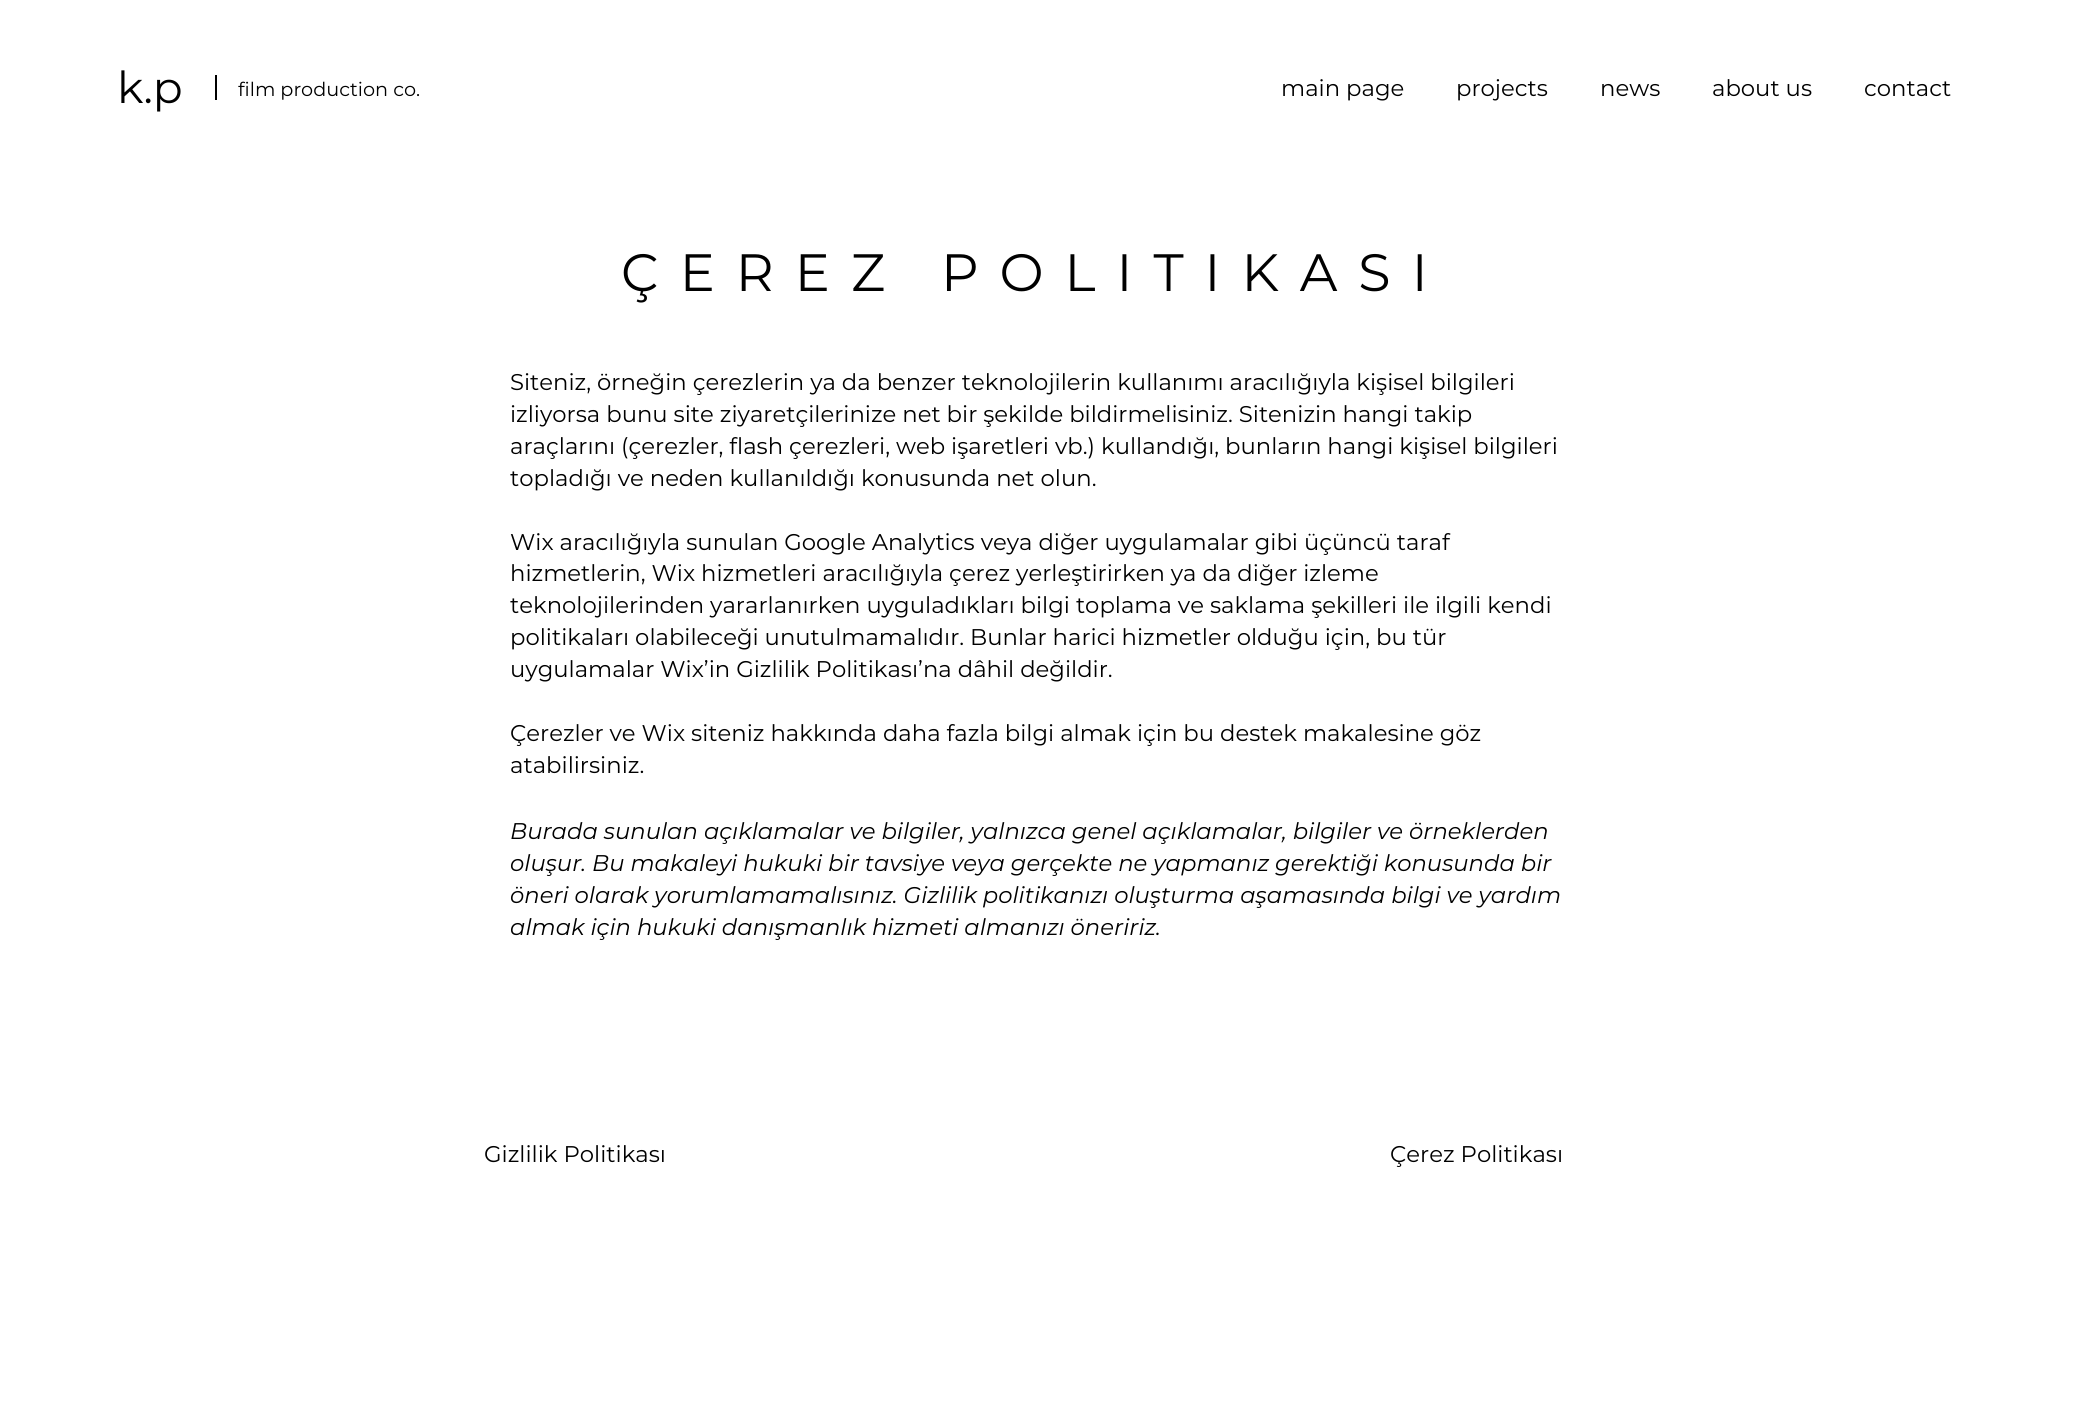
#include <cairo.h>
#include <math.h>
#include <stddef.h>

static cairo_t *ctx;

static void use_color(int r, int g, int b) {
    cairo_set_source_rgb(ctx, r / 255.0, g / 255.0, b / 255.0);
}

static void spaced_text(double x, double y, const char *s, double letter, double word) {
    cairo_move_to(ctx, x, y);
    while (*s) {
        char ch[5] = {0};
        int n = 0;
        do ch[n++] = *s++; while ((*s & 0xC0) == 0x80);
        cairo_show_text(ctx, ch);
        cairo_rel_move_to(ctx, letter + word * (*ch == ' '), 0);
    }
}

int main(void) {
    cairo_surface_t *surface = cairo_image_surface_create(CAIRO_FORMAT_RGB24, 2077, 1426);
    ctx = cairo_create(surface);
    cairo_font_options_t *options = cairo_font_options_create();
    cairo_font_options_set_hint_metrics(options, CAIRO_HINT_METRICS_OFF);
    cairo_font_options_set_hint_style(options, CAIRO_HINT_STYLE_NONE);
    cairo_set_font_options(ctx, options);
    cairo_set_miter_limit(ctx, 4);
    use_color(255, 255, 255);
    cairo_paint(ctx);
    cairo_select_font_face(ctx, "Montserrat", CAIRO_FONT_SLANT_NORMAL, CAIRO_FONT_WEIGHT_NORMAL);
    cairo_set_font_size(ctx, 44);
    use_color(0, 0, 0);
    cairo_move_to(ctx, 117, 103);
    cairo_show_text(ctx, "k.p");
    cairo_rectangle(ctx, 215, 75, 2, 25);
    cairo_fill(ctx);
    cairo_set_font_size(ctx, 19.25);
    cairo_move_to(ctx, 238, 96);
    cairo_show_text(ctx, "film production co.");
    cairo_set_font_size(ctx, 22.75);
    cairo_move_to(ctx, 1281, 96);
    cairo_show_text(ctx, "main page");
    cairo_move_to(ctx, 1456, 96);
    cairo_show_text(ctx, "projects");
    cairo_move_to(ctx, 1600, 96);
    cairo_show_text(ctx, "news");
    cairo_move_to(ctx, 1712, 96);
    cairo_show_text(ctx, "about us");
    cairo_move_to(ctx, 1864, 96);
    cairo_show_text(ctx, "contact");
    cairo_set_font_size(ctx, 52.5);
    spaced_text(621, 291, "ÇEREZ POLITIKASI", 21, 0);
    cairo_set_font_size(ctx, 22.75);
    cairo_move_to(ctx, 510, 390);
    cairo_show_text(ctx, "Siteniz, örneğin çerezlerin ya da benzer teknolojilerin kullanımı aracılığıyla kişisel bilgileri");
    cairo_move_to(ctx, 510, 422);
    cairo_show_text(ctx, "izliyorsa bunu site ziyaretçilerinize net bir şekilde bildirmelisiniz. Sitenizin hangi takip");
    cairo_move_to(ctx, 510, 454);
    cairo_show_text(ctx, "araçlarını (çerezler, flash çerezleri, web işaretleri vb.) kullandığı, bunların hangi kişisel bilgileri");
    cairo_move_to(ctx, 510, 486);
    cairo_show_text(ctx, "topladığı ve neden kullanıldığı konusunda net olun.");
    cairo_move_to(ctx, 510, 550);
    cairo_show_text(ctx, "Wix aracılığıyla sunulan Google Analytics veya diğer uygulamalar gibi üçüncü taraf");
    cairo_move_to(ctx, 510, 581);
    cairo_show_text(ctx, "hizmetlerin, Wix hizmetleri aracılığıyla çerez yerleştirirken ya da diğer izleme");
    cairo_move_to(ctx, 510, 613);
    cairo_show_text(ctx, "teknolojilerinden yararlanırken uyguladıkları bilgi toplama ve saklama şekilleri ile ilgili kendi");
    cairo_move_to(ctx, 510, 645);
    cairo_show_text(ctx, "politikaları olabileceği unutulmamalıdır. Bunlar harici hizmetler olduğu için, bu tür");
    cairo_move_to(ctx, 510, 677);
    cairo_show_text(ctx, "uygulamalar Wix’in Gizlilik Politikası’na dâhil değildir.");
    cairo_move_to(ctx, 510, 741);
    cairo_show_text(ctx, "Çerezler ve Wix siteniz hakkında daha fazla bilgi almak için bu destek makalesine göz");
    cairo_move_to(ctx, 510, 773);
    cairo_show_text(ctx, "atabilirsiniz.");
    cairo_select_font_face(ctx, "Montserrat", CAIRO_FONT_SLANT_ITALIC, CAIRO_FONT_WEIGHT_NORMAL);
    cairo_move_to(ctx, 510, 839);
    cairo_show_text(ctx, "Burada sunulan açıklamalar ve bilgiler, yalnızca genel açıklamalar, bilgiler ve örneklerden");
    cairo_move_to(ctx, 510, 871);
    cairo_show_text(ctx, "oluşur. Bu makaleyi hukuki bir tavsiye veya gerçekte ne yapmanız gerektiği konusunda bir");
    cairo_move_to(ctx, 510, 903);
    cairo_show_text(ctx, "öneri olarak yorumlamamalısınız. Gizlilik politikanızı oluşturma aşamasında bilgi ve yardım");
    cairo_move_to(ctx, 510, 935);
    cairo_show_text(ctx, "almak için hukuki danışmanlık hizmeti almanızı öneririz.");
    cairo_select_font_face(ctx, "Montserrat", CAIRO_FONT_SLANT_NORMAL, CAIRO_FONT_WEIGHT_NORMAL);
    cairo_move_to(ctx, 484, 1162);
    cairo_show_text(ctx, "Gizlilik Politikası");
    cairo_move_to(ctx, 1390, 1162);
    cairo_show_text(ctx, "Çerez Politikası");
    cairo_surface_write_to_png(surface, "result.png");
    cairo_font_options_destroy(options);
    cairo_destroy(ctx);
    cairo_surface_destroy(surface);
    return 0;
}
